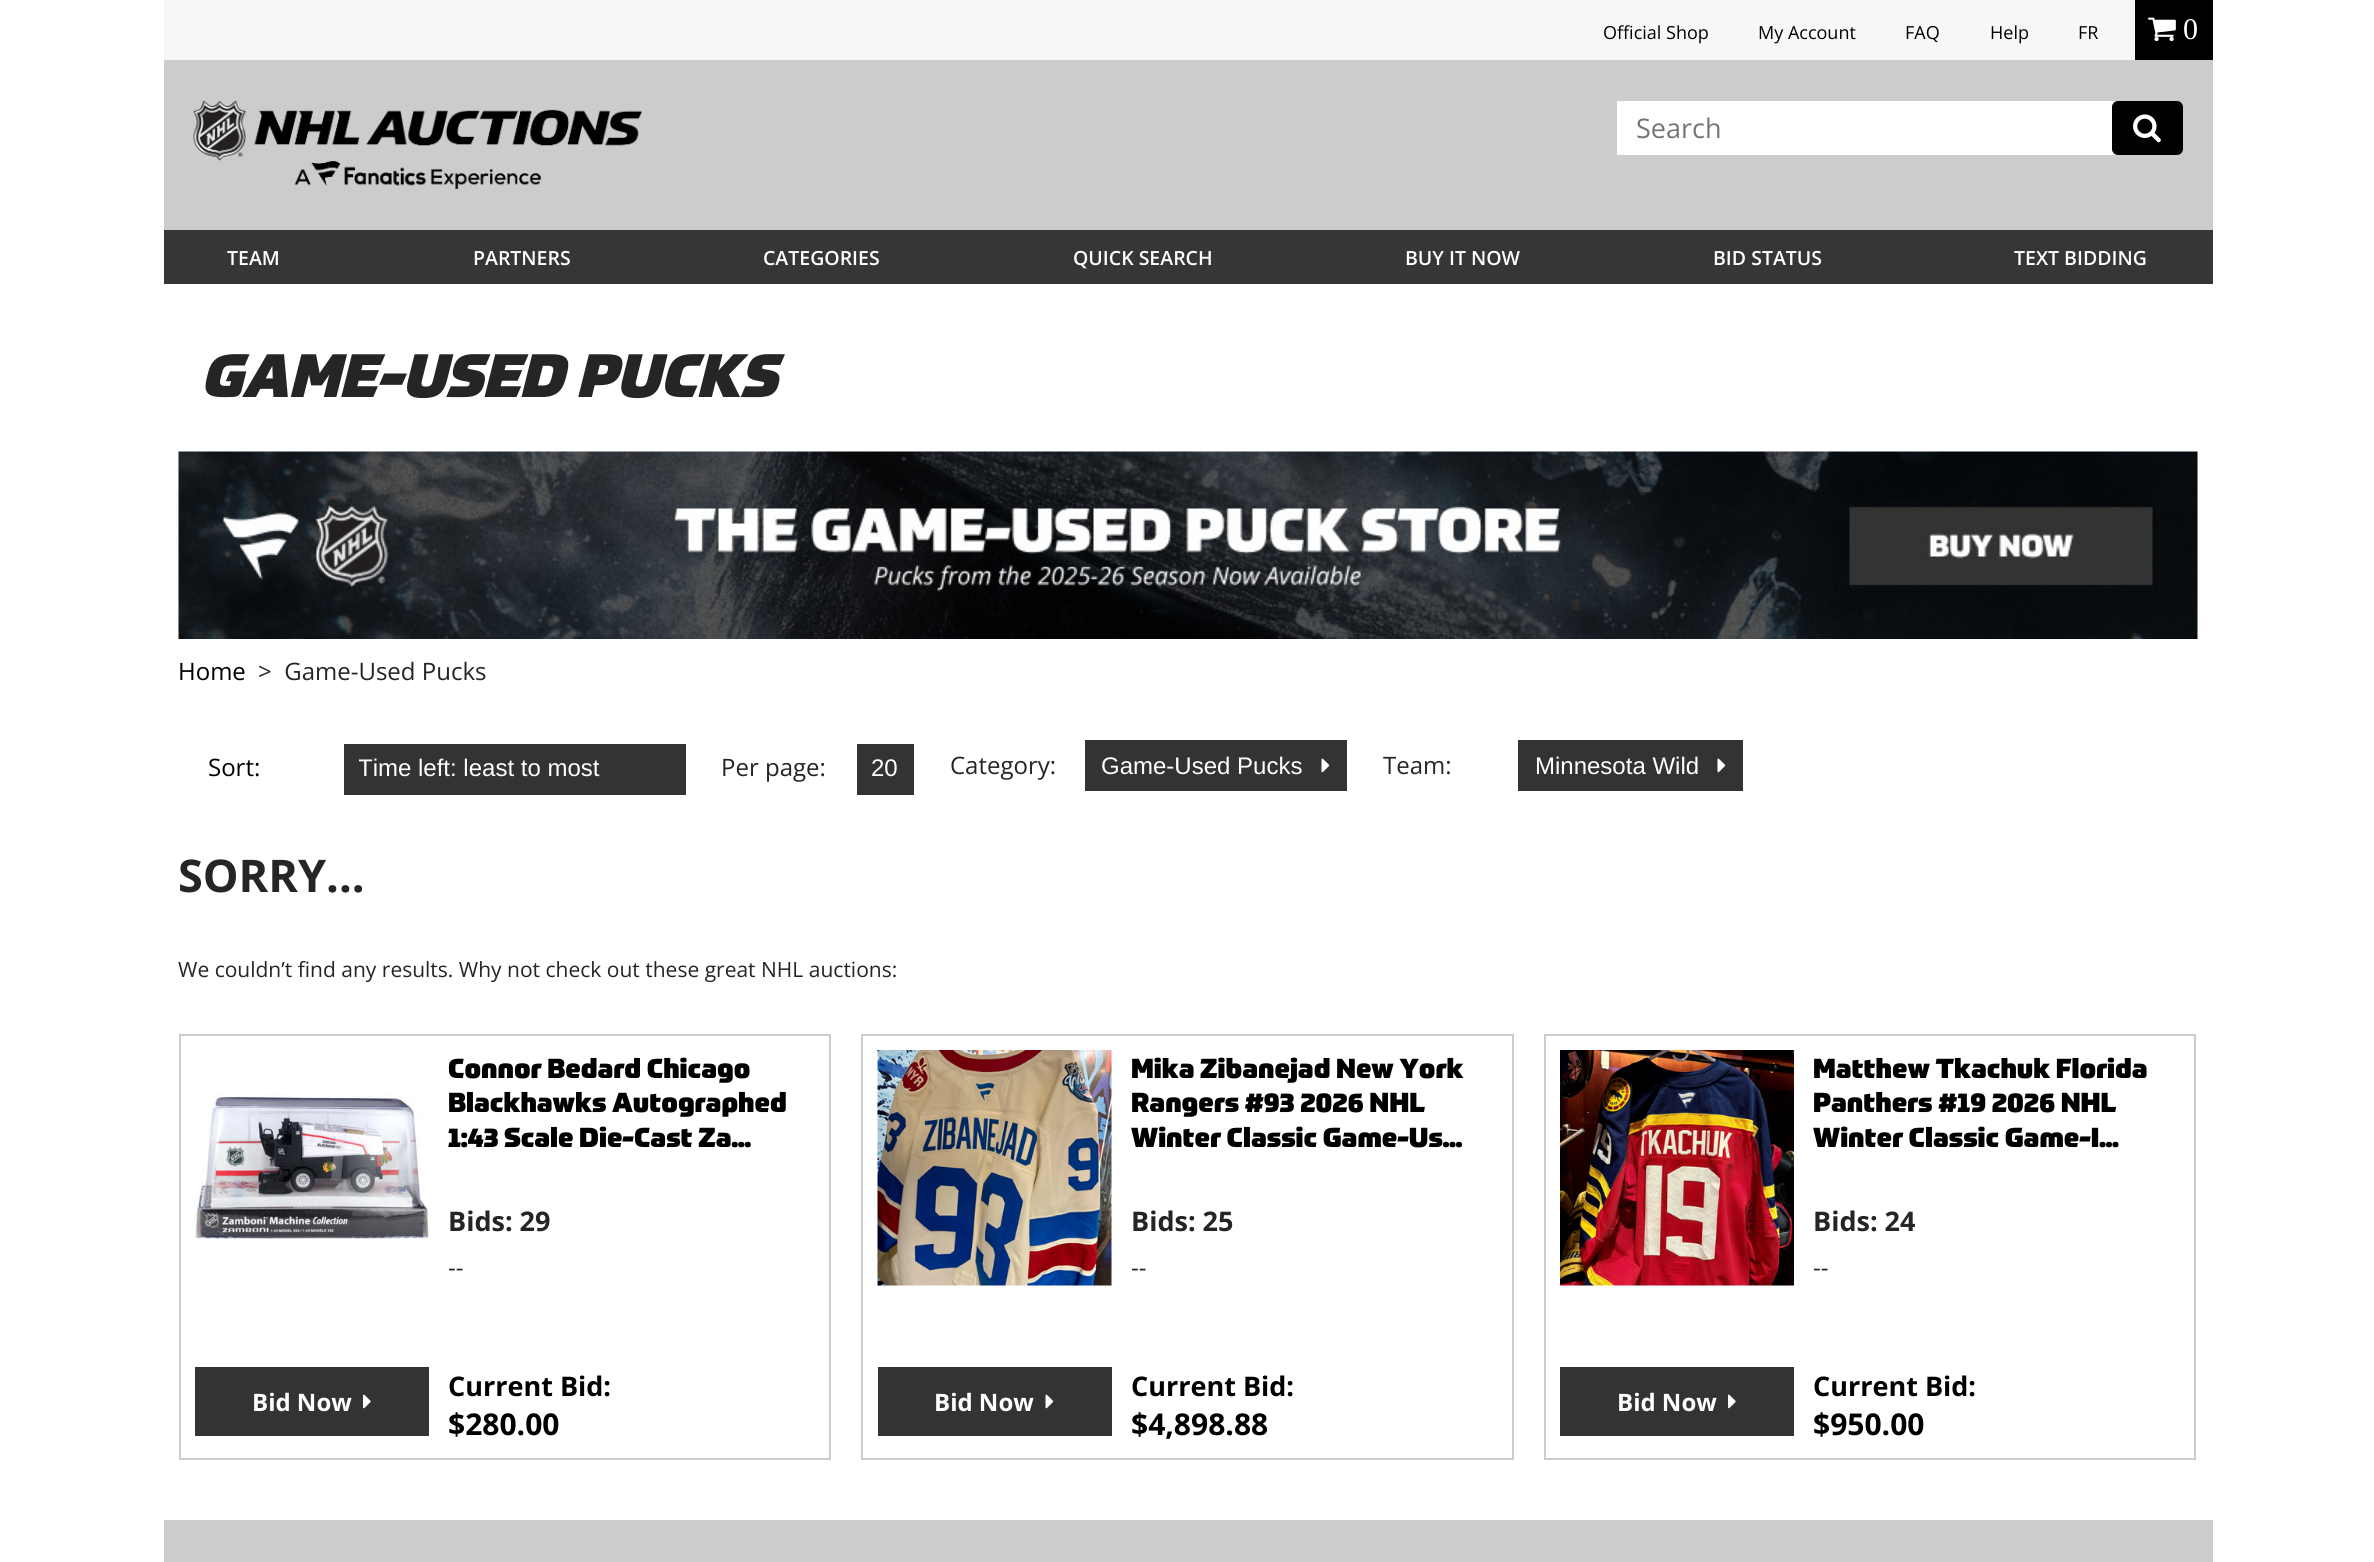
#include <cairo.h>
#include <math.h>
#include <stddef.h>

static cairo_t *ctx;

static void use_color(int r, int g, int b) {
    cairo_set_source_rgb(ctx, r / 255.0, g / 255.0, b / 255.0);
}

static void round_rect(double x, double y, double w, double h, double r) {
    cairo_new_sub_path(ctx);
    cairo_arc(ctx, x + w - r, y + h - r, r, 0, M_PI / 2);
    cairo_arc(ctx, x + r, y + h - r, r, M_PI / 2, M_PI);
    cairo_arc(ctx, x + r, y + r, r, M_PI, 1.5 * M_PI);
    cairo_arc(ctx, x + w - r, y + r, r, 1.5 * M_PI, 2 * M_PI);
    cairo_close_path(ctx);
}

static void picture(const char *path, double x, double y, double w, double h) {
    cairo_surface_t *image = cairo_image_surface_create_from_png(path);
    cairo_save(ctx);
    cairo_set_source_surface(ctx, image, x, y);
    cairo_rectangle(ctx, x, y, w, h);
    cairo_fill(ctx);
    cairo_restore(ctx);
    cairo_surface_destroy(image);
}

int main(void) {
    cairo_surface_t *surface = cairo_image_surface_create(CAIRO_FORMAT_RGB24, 2374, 1562);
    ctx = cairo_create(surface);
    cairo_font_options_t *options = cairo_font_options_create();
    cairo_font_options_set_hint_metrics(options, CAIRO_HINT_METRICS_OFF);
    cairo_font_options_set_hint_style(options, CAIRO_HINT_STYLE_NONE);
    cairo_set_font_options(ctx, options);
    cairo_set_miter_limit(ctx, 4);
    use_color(255, 255, 255);
    cairo_paint(ctx);
    use_color(247, 247, 247);
    cairo_rectangle(ctx, 164, 0, 1971, 60);
    cairo_fill(ctx);
    cairo_select_font_face(ctx, "Open Sans", CAIRO_FONT_SLANT_NORMAL, CAIRO_FONT_WEIGHT_NORMAL);
    cairo_set_font_size(ctx, 18);
    use_color(0, 0, 0);
    cairo_move_to(ctx, 1603, 39);
    cairo_show_text(ctx, "Official Shop");
    cairo_move_to(ctx, 1758, 39);
    cairo_show_text(ctx, "My Account");
    cairo_move_to(ctx, 1905, 39);
    cairo_show_text(ctx, "FAQ");
    cairo_move_to(ctx, 1990, 39);
    cairo_show_text(ctx, "Help");
    cairo_move_to(ctx, 2078, 39);
    cairo_show_text(ctx, "FR");
    cairo_rectangle(ctx, 2135, 0, 78, 60);
    cairo_fill(ctx);
    picture("img1.png", 2148, 17, 28, 25);
    cairo_select_font_face(ctx, "Liberation Serif", CAIRO_FONT_SLANT_NORMAL, CAIRO_FONT_WEIGHT_NORMAL);
    cairo_set_font_size(ctx, 30);
    use_color(255, 255, 255);
    cairo_move_to(ctx, 2183, 39);
    cairo_show_text(ctx, "0");
    use_color(204, 204, 204);
    cairo_rectangle(ctx, 164, 60, 2049, 170);
    cairo_fill(ctx);
    picture("img2.png", 193, 100, 449, 89);
    use_color(255, 255, 255);
    cairo_new_path(ctx);
    cairo_move_to(ctx, 1617, 101);
    cairo_line_to(ctx, 2177, 101);
    cairo_curve_to(ctx, 2180.5, 101, 2183, 103.5, 2183, 107);
    cairo_line_to(ctx, 2183, 149);
    cairo_curve_to(ctx, 2183, 152.5, 2180.5, 155, 2177, 155);
    cairo_line_to(ctx, 1617, 155);
    cairo_close_path(ctx);
    cairo_fill(ctx);
    cairo_select_font_face(ctx, "Open Sans", CAIRO_FONT_SLANT_NORMAL, CAIRO_FONT_WEIGHT_NORMAL);
    cairo_set_font_size(ctx, 27);
    use_color(117, 117, 117);
    cairo_move_to(ctx, 1636, 138);
    cairo_show_text(ctx, "Search");
    use_color(0, 0, 0);
    round_rect(2112, 101, 71, 54, 6);
    cairo_fill(ctx);
    picture("img3.png", 2133, 114, 28, 29);
    use_color(55, 53, 54);
    cairo_rectangle(ctx, 164, 230, 2049, 54);
    cairo_fill(ctx);
    cairo_select_font_face(ctx, "Open Sans SemiBold", CAIRO_FONT_SLANT_NORMAL, CAIRO_FONT_WEIGHT_NORMAL);
    cairo_set_font_size(ctx, 19.5);
    use_color(255, 255, 255);
    cairo_move_to(ctx, 227, 265);
    cairo_show_text(ctx, "TEAM");
    cairo_move_to(ctx, 473, 265);
    cairo_show_text(ctx, "PARTNERS");
    cairo_move_to(ctx, 763, 265);
    cairo_show_text(ctx, "CATEGORIES");
    cairo_move_to(ctx, 1073, 265);
    cairo_show_text(ctx, "QUICK SEARCH");
    cairo_move_to(ctx, 1405, 265);
    cairo_show_text(ctx, "BUY IT NOW");
    cairo_move_to(ctx, 1713, 265);
    cairo_show_text(ctx, "BID STATUS");
    cairo_move_to(ctx, 2014, 265);
    cairo_show_text(ctx, "TEXT BIDDING");
    cairo_select_font_face(ctx, "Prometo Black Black", CAIRO_FONT_SLANT_ITALIC, CAIRO_FONT_WEIGHT_NORMAL);
    cairo_set_font_size(ctx, 60);
    use_color(38, 37, 37);
    cairo_move_to(ctx, 200, 397);
    cairo_show_text(ctx, "GAME-USED PUCKS");
    picture("img4.png", 178, 451, 2020, 188);
    cairo_select_font_face(ctx, "Open Sans", CAIRO_FONT_SLANT_NORMAL, CAIRO_FONT_WEIGHT_NORMAL);
    cairo_set_font_size(ctx, 24);
    use_color(0, 0, 0);
    cairo_move_to(ctx, 178, 680);
    cairo_show_text(ctx, "Home");
    use_color(38, 37, 37);
    cairo_move_to(ctx, 258, 680);
    cairo_show_text(ctx, ">  Game-Used Pucks");
    use_color(0, 0, 0);
    cairo_move_to(ctx, 208, 776);
    cairo_show_text(ctx, "Sort:");
    use_color(51, 51, 51);
    cairo_rectangle(ctx, 344, 744, 342, 51);
    cairo_fill(ctx);
    cairo_save(ctx);
    cairo_rectangle(ctx, 359, 758, 312, 24);
    cairo_clip(ctx);
    cairo_select_font_face(ctx, "Liberation Sans", CAIRO_FONT_SLANT_NORMAL, CAIRO_FONT_WEIGHT_NORMAL);
    use_color(255, 255, 255);
    cairo_move_to(ctx, 358, 776);
    cairo_show_text(ctx, "Time left: least to most");
    cairo_restore(ctx);
    use_color(38, 37, 37);
    cairo_move_to(ctx, 721, 776);
    cairo_show_text(ctx, "Per page:");
    use_color(51, 51, 51);
    cairo_rectangle(ctx, 857, 744, 57, 51);
    cairo_fill(ctx);
    cairo_select_font_face(ctx, "Liberation Sans", CAIRO_FONT_SLANT_NORMAL, CAIRO_FONT_WEIGHT_NORMAL);
    use_color(255, 255, 255);
    cairo_move_to(ctx, 871, 776);
    cairo_show_text(ctx, "20");
    cairo_select_font_face(ctx, "Open Sans", CAIRO_FONT_SLANT_NORMAL, CAIRO_FONT_WEIGHT_NORMAL);
    use_color(38, 37, 37);
    cairo_move_to(ctx, 950, 774);
    cairo_show_text(ctx, "Category:");
    use_color(51, 51, 51);
    cairo_rectangle(ctx, 1085, 740, 262, 51);
    cairo_fill(ctx);
    cairo_select_font_face(ctx, "Liberation Sans", CAIRO_FONT_SLANT_NORMAL, CAIRO_FONT_WEIGHT_NORMAL);
    use_color(255, 255, 255);
    cairo_move_to(ctx, 1101, 774);
    cairo_show_text(ctx, "Game-Used Pucks");
    picture("img5.png", 1321, 758, 9, 15);
    cairo_select_font_face(ctx, "Open Sans", CAIRO_FONT_SLANT_NORMAL, CAIRO_FONT_WEIGHT_NORMAL);
    use_color(38, 37, 37);
    cairo_move_to(ctx, 1383, 774);
    cairo_show_text(ctx, "Team:");
    use_color(51, 51, 51);
    cairo_rectangle(ctx, 1518, 740, 225, 51);
    cairo_fill(ctx);
    cairo_select_font_face(ctx, "Liberation Sans", CAIRO_FONT_SLANT_NORMAL, CAIRO_FONT_WEIGHT_NORMAL);
    use_color(255, 255, 255);
    cairo_move_to(ctx, 1535, 774);
    cairo_show_text(ctx, "Minnesota Wild");
    picture("img5.png", 1717, 758, 9, 15);
    cairo_select_font_face(ctx, "Open Sans", CAIRO_FONT_SLANT_NORMAL, CAIRO_FONT_WEIGHT_BOLD);
    cairo_set_font_size(ctx, 45);
    use_color(38, 37, 37);
    cairo_move_to(ctx, 178, 892);
    cairo_show_text(ctx, "SORRY...");
    cairo_select_font_face(ctx, "Open Sans", CAIRO_FONT_SLANT_NORMAL, CAIRO_FONT_WEIGHT_NORMAL);
    cairo_set_font_size(ctx, 21);
    cairo_move_to(ctx, 178, 977);
    cairo_show_text(ctx, "We couldn’t find any results. Why not check out these great NHL auctions:");
    cairo_rectangle(ctx, 180, 1035, 650, 424);
    use_color(204, 204, 204);
    cairo_stroke(ctx);
    picture("img6.png", 195, 1094, 234, 145);
    cairo_select_font_face(ctx, "Prometo Black Black", CAIRO_FONT_SLANT_NORMAL, CAIRO_FONT_WEIGHT_NORMAL);
    cairo_set_font_size(ctx, 27);
    use_color(0, 0, 0);
    cairo_move_to(ctx, 448, 1078);
    cairo_show_text(ctx, "Connor Bedard Chicago");
    cairo_move_to(ctx, 448, 1112);
    cairo_show_text(ctx, "Blackhawks Autographed");
    cairo_move_to(ctx, 448, 1147);
    cairo_show_text(ctx, "1:43 Scale Die-Cast Za...");
    cairo_select_font_face(ctx, "Open Sans", CAIRO_FONT_SLANT_NORMAL, CAIRO_FONT_WEIGHT_BOLD);
    use_color(38, 37, 37);
    cairo_move_to(ctx, 448, 1231);
    cairo_show_text(ctx, "Bids: 29");
    cairo_select_font_face(ctx, "Open Sans", CAIRO_FONT_SLANT_NORMAL, CAIRO_FONT_WEIGHT_NORMAL);
    cairo_set_font_size(ctx, 24);
    cairo_move_to(ctx, 448, 1276);
    cairo_show_text(ctx, "--");
    use_color(51, 51, 51);
    cairo_rectangle(ctx, 195, 1367, 234, 69);
    cairo_fill(ctx);
    cairo_select_font_face(ctx, "Open Sans", CAIRO_FONT_SLANT_NORMAL, CAIRO_FONT_WEIGHT_BOLD);
    use_color(255, 255, 255);
    cairo_move_to(ctx, 252, 1411);
    cairo_show_text(ctx, "Bid Now");
    picture("img7.png", 363, 1394, 8, 15);
    cairo_set_font_size(ctx, 27);
    use_color(0, 0, 0);
    cairo_move_to(ctx, 448, 1396);
    cairo_show_text(ctx, "Current Bid:");
    cairo_set_font_size(ctx, 30);
    cairo_move_to(ctx, 448, 1435);
    cairo_show_text(ctx, "$280.00");
    cairo_rectangle(ctx, 862, 1035, 651, 424);
    use_color(204, 204, 204);
    cairo_stroke(ctx);
    picture("img8.png", 877, 1050, 235, 236);
    cairo_select_font_face(ctx, "Prometo Black Black", CAIRO_FONT_SLANT_NORMAL, CAIRO_FONT_WEIGHT_NORMAL);
    cairo_set_font_size(ctx, 27);
    use_color(0, 0, 0);
    cairo_move_to(ctx, 1131, 1078);
    cairo_show_text(ctx, "Mika Zibanejad New York");
    cairo_move_to(ctx, 1131, 1112);
    cairo_show_text(ctx, "Rangers #93 2026 NHL");
    cairo_move_to(ctx, 1131, 1147);
    cairo_show_text(ctx, "Winter Classic Game-Us...");
    cairo_select_font_face(ctx, "Open Sans", CAIRO_FONT_SLANT_NORMAL, CAIRO_FONT_WEIGHT_BOLD);
    use_color(38, 37, 37);
    cairo_move_to(ctx, 1131, 1231);
    cairo_show_text(ctx, "Bids: 25");
    cairo_select_font_face(ctx, "Open Sans", CAIRO_FONT_SLANT_NORMAL, CAIRO_FONT_WEIGHT_NORMAL);
    cairo_set_font_size(ctx, 24);
    cairo_move_to(ctx, 1131, 1276);
    cairo_show_text(ctx, "--");
    use_color(51, 51, 51);
    cairo_rectangle(ctx, 878, 1367, 234, 69);
    cairo_fill(ctx);
    cairo_select_font_face(ctx, "Open Sans", CAIRO_FONT_SLANT_NORMAL, CAIRO_FONT_WEIGHT_BOLD);
    use_color(255, 255, 255);
    cairo_move_to(ctx, 934, 1411);
    cairo_show_text(ctx, "Bid Now");
    picture("img5.png", 1045, 1394, 9, 15);
    cairo_set_font_size(ctx, 27);
    use_color(0, 0, 0);
    cairo_move_to(ctx, 1131, 1396);
    cairo_show_text(ctx, "Current Bid:");
    cairo_set_font_size(ctx, 30);
    cairo_move_to(ctx, 1131, 1435);
    cairo_show_text(ctx, "$4,898.88");
    cairo_rectangle(ctx, 1545, 1035, 650, 424);
    use_color(204, 204, 204);
    cairo_stroke(ctx);
    picture("img9.png", 1560, 1050, 234, 236);
    cairo_select_font_face(ctx, "Prometo Black Black", CAIRO_FONT_SLANT_NORMAL, CAIRO_FONT_WEIGHT_NORMAL);
    cairo_set_font_size(ctx, 27);
    use_color(0, 0, 0);
    cairo_move_to(ctx, 1813, 1078);
    cairo_show_text(ctx, "Matthew Tkachuk Florida");
    cairo_move_to(ctx, 1813, 1112);
    cairo_show_text(ctx, "Panthers #19 2026 NHL");
    cairo_move_to(ctx, 1813, 1147);
    cairo_show_text(ctx, "Winter Classic Game-I...");
    cairo_select_font_face(ctx, "Open Sans", CAIRO_FONT_SLANT_NORMAL, CAIRO_FONT_WEIGHT_BOLD);
    use_color(38, 37, 37);
    cairo_move_to(ctx, 1813, 1231);
    cairo_show_text(ctx, "Bids: 24");
    cairo_select_font_face(ctx, "Open Sans", CAIRO_FONT_SLANT_NORMAL, CAIRO_FONT_WEIGHT_NORMAL);
    cairo_set_font_size(ctx, 24);
    cairo_move_to(ctx, 1813, 1276);
    cairo_show_text(ctx, "--");
    use_color(51, 51, 51);
    cairo_rectangle(ctx, 1560, 1367, 234, 69);
    cairo_fill(ctx);
    cairo_select_font_face(ctx, "Open Sans", CAIRO_FONT_SLANT_NORMAL, CAIRO_FONT_WEIGHT_BOLD);
    use_color(255, 255, 255);
    cairo_move_to(ctx, 1617, 1411);
    cairo_show_text(ctx, "Bid Now");
    picture("img7.png", 1728, 1394, 8, 15);
    cairo_set_font_size(ctx, 27);
    use_color(0, 0, 0);
    cairo_move_to(ctx, 1813, 1396);
    cairo_show_text(ctx, "Current Bid:");
    cairo_set_font_size(ctx, 30);
    cairo_move_to(ctx, 1813, 1435);
    cairo_show_text(ctx, "$950.00");
    use_color(204, 204, 204);
    cairo_rectangle(ctx, 164, 1520, 2049, 42);
    cairo_fill(ctx);
    cairo_surface_write_to_png(surface, "result.png");
    cairo_font_options_destroy(options);
    cairo_destroy(ctx);
    cairo_surface_destroy(surface);
    return 0;
}
